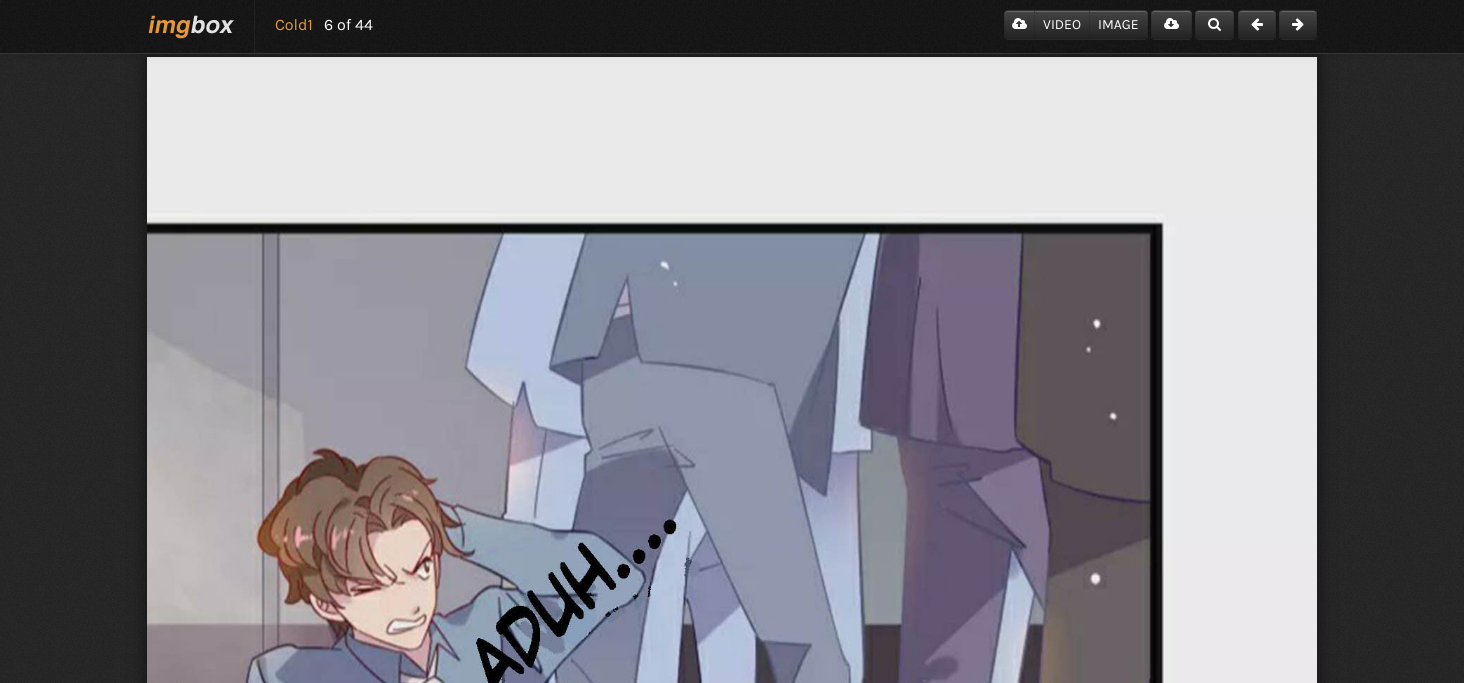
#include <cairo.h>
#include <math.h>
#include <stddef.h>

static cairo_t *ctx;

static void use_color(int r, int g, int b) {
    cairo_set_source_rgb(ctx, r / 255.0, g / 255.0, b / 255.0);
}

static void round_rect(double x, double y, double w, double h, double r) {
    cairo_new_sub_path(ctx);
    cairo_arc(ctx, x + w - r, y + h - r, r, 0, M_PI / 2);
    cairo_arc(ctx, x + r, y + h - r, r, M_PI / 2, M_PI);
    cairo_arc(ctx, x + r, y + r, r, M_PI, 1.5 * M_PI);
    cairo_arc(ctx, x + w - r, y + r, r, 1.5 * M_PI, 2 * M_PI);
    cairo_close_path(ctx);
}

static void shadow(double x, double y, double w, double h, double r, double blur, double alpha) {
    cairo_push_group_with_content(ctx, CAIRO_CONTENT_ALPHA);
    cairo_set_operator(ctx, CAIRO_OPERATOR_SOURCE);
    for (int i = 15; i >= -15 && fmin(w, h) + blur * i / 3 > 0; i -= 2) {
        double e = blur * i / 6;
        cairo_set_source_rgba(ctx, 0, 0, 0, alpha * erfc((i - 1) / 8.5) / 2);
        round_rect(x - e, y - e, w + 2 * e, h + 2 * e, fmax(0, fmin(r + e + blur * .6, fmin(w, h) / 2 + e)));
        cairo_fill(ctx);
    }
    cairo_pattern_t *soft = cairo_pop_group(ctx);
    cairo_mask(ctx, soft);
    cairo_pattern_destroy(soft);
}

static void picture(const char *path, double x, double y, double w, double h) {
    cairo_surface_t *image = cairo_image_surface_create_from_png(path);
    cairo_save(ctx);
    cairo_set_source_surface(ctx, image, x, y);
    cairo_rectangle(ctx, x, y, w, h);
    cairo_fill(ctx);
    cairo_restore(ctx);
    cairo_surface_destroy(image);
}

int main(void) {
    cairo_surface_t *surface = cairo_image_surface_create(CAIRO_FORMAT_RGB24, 1464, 683);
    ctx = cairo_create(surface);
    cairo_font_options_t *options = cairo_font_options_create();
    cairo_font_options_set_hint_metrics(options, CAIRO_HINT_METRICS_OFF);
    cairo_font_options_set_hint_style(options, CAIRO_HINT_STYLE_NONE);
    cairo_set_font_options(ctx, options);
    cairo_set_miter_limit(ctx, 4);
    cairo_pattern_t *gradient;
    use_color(255, 255, 255);
    cairo_paint(ctx);
    picture("img1.png", 0, 54, 1464, 629);
    use_color(17, 17, 17);
    shadow(147, 57, 1170, 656, 0, 10, 1);
    picture("img9.png", 147, 57, 1170, 626);
    use_color(0, 0, 0);
    shadow(0, 1, 1464, 54, 0, 5, 0.1);
    picture("img2.png", 0, 0, 1464, 53);
    use_color(55, 55, 55);
    cairo_rectangle(ctx, 0, 53, 1464, 1);
    cairo_fill(ctx);
    picture("img3.png", 148, 15, 86, 24);
    use_color(32, 32, 32);
    cairo_rectangle(ctx, 254, 0, 1, 53);
    cairo_fill(ctx);
    cairo_select_font_face(ctx, "Karla", CAIRO_FONT_SLANT_NORMAL, CAIRO_FONT_WEIGHT_NORMAL);
    cairo_set_font_size(ctx, 16);
    use_color(227, 153, 56);
    cairo_move_to(ctx, 275, 30);
    cairo_show_text(ctx, "Cold1");
    use_color(253, 254, 255);
    cairo_move_to(ctx, 324, 30);
    cairo_show_text(ctx, "6 of 44");
    use_color(54, 54, 54);
    cairo_new_path(ctx);
    cairo_move_to(ctx, 1008, 10);
    cairo_line_to(ctx, 1035, 10);
    cairo_line_to(ctx, 1035, 40);
    cairo_line_to(ctx, 1008, 40);
    cairo_curve_to(ctx, 1006, 40, 1004, 38, 1004, 36);
    cairo_line_to(ctx, 1004, 14);
    cairo_curve_to(ctx, 1004, 12, 1006, 10, 1008, 10);
    cairo_close_path(ctx);
    cairo_fill(ctx);
    cairo_save(ctx);
    cairo_new_path(ctx);
    cairo_move_to(ctx, 1008, 10);
    cairo_line_to(ctx, 1035, 10);
    cairo_line_to(ctx, 1035, 40);
    cairo_line_to(ctx, 1008, 40);
    cairo_curve_to(ctx, 1006, 40, 1004, 38, 1004, 36);
    cairo_line_to(ctx, 1004, 14);
    cairo_curve_to(ctx, 1004, 12, 1006, 10, 1008, 10);
    cairo_close_path(ctx);
    cairo_clip(ctx);
    gradient = cairo_pattern_create_linear(1020, 11, 1020, 39);
    cairo_pattern_add_color_stop_rgba(gradient, 0, 0.267, 0.267, 0.267, 1);
    cairo_pattern_add_color_stop_rgba(gradient, 1, 0.133, 0.133, 0.133, 1);
    cairo_set_source(ctx, gradient);
    cairo_pattern_destroy(gradient);
    cairo_rectangle(ctx, 1004, 11, 30, 28);
    cairo_fill(ctx);
    cairo_restore(ctx);
    use_color(105, 105, 105);
    cairo_new_path(ctx);
    cairo_move_to(ctx, 1008, 12);
    cairo_line_to(ctx, 1034, 12);
    cairo_line_to(ctx, 1034, 11);
    cairo_line_to(ctx, 1008, 11);
    cairo_curve_to(ctx, 1006.5, 11, 1005, 12.5, 1005, 14);
    cairo_line_to(ctx, 1005, 15);
    cairo_curve_to(ctx, 1005, 13, 1006, 12, 1008, 12);
    cairo_close_path(ctx);
    cairo_fill(ctx);
    cairo_set_source_rgba(ctx, 0, 0, 0, 0.1);
    cairo_new_path(ctx);
    cairo_move_to(ctx, 1008, 10);
    cairo_curve_to(ctx, 1007, 10, 1006, 10.5, 1005, 11);
    cairo_line_to(ctx, 1006, 12);
    cairo_curve_to(ctx, 1006.5, 11.5, 1007, 11, 1008, 11);
    cairo_line_to(ctx, 1034, 11);
    cairo_line_to(ctx, 1035, 10);
    cairo_close_path(ctx);
    cairo_fill(ctx);
    cairo_set_source_rgba(ctx, 0, 0, 0, 0.25);
    cairo_new_path(ctx);
    cairo_move_to(ctx, 1035, 40);
    cairo_line_to(ctx, 1034, 39);
    cairo_line_to(ctx, 1008, 39);
    cairo_curve_to(ctx, 1007, 39, 1006.5, 38.5, 1006, 38);
    cairo_line_to(ctx, 1005, 39);
    cairo_curve_to(ctx, 1006, 39.5, 1007, 40, 1008, 40);
    cairo_close_path(ctx);
    cairo_fill(ctx);
    cairo_set_source_rgba(ctx, 0, 0, 0, 0.1);
    cairo_new_path(ctx);
    cairo_move_to(ctx, 1004, 14);
    cairo_line_to(ctx, 1004, 36);
    cairo_curve_to(ctx, 1004, 37, 1004.5, 38, 1005, 39);
    cairo_line_to(ctx, 1006, 38);
    cairo_curve_to(ctx, 1005.5, 37.5, 1005, 37, 1005, 36);
    cairo_line_to(ctx, 1005, 14);
    cairo_curve_to(ctx, 1005, 13, 1005.5, 12.5, 1006, 12);
    cairo_line_to(ctx, 1005, 11);
    cairo_curve_to(ctx, 1004.5, 12, 1004, 13, 1004, 14);
    cairo_close_path(ctx);
    cairo_fill(ctx);
    picture("img4.png", 1012, 18, 15, 11);
    use_color(54, 54, 54);
    cairo_rectangle(ctx, 1034, 10, 55, 30);
    cairo_fill(ctx);
    gradient = cairo_pattern_create_linear(1062, 11, 1062, 39);
    cairo_pattern_add_color_stop_rgba(gradient, 0, 0.267, 0.267, 0.267, 1);
    cairo_pattern_add_color_stop_rgba(gradient, 1, 0.133, 0.133, 0.133, 1);
    cairo_set_source(ctx, gradient);
    cairo_pattern_destroy(gradient);
    cairo_rectangle(ctx, 1034, 11, 55, 28);
    cairo_fill(ctx);
    use_color(105, 105, 105);
    cairo_rectangle(ctx, 1035, 11, 54, 1);
    cairo_fill(ctx);
    use_color(49, 49, 49);
    cairo_new_path(ctx);
    cairo_move_to(ctx, 1034, 10);
    cairo_line_to(ctx, 1090, 10);
    cairo_line_to(ctx, 1089, 11);
    cairo_line_to(ctx, 1035, 11);
    cairo_close_path(ctx);
    cairo_fill(ctx);
    cairo_set_source_rgba(ctx, 0, 0, 0, 0.25);
    cairo_new_path(ctx);
    cairo_move_to(ctx, 1090, 40);
    cairo_line_to(ctx, 1034, 40);
    cairo_line_to(ctx, 1035, 39);
    cairo_line_to(ctx, 1089, 39);
    cairo_close_path(ctx);
    cairo_fill(ctx);
    cairo_set_source_rgba(ctx, 0, 0, 0, 0.1);
    cairo_new_path(ctx);
    cairo_move_to(ctx, 1034, 40);
    cairo_line_to(ctx, 1034, 10);
    cairo_line_to(ctx, 1035, 11);
    cairo_line_to(ctx, 1035, 39);
    cairo_close_path(ctx);
    cairo_fill(ctx);
    cairo_set_font_size(ctx, 14);
    use_color(253, 254, 255);
    cairo_move_to(ctx, 1043, 29);
    cairo_show_text(ctx, "VIDEO");
    use_color(54, 54, 54);
    cairo_new_path(ctx);
    cairo_move_to(ctx, 1089, 10);
    cairo_line_to(ctx, 1144, 10);
    cairo_curve_to(ctx, 1146, 10, 1148, 12, 1148, 14);
    cairo_line_to(ctx, 1148, 36);
    cairo_curve_to(ctx, 1148, 38, 1146, 40, 1144, 40);
    cairo_line_to(ctx, 1089, 40);
    cairo_close_path(ctx);
    cairo_fill(ctx);
    cairo_save(ctx);
    cairo_new_path(ctx);
    cairo_move_to(ctx, 1089, 10);
    cairo_line_to(ctx, 1144, 10);
    cairo_curve_to(ctx, 1146, 10, 1148, 12, 1148, 14);
    cairo_line_to(ctx, 1148, 36);
    cairo_curve_to(ctx, 1148, 38, 1146, 40, 1144, 40);
    cairo_line_to(ctx, 1089, 40);
    cairo_close_path(ctx);
    cairo_clip(ctx);
    gradient = cairo_pattern_create_linear(1119, 11, 1119, 39);
    cairo_pattern_add_color_stop_rgba(gradient, 0, 0.267, 0.267, 0.267, 1);
    cairo_pattern_add_color_stop_rgba(gradient, 1, 0.133, 0.133, 0.133, 1);
    cairo_set_source(ctx, gradient);
    cairo_pattern_destroy(gradient);
    cairo_rectangle(ctx, 1089, 11, 59, 28);
    cairo_fill(ctx);
    cairo_restore(ctx);
    use_color(105, 105, 105);
    cairo_new_path(ctx);
    cairo_move_to(ctx, 1090, 12);
    cairo_line_to(ctx, 1144, 12);
    cairo_curve_to(ctx, 1146, 12, 1147, 13, 1147, 15);
    cairo_line_to(ctx, 1147, 14);
    cairo_curve_to(ctx, 1147, 12, 1146, 11, 1144, 11);
    cairo_line_to(ctx, 1090, 11);
    cairo_close_path(ctx);
    cairo_fill(ctx);
    cairo_set_source_rgba(ctx, 0, 0, 0, 0.1);
    cairo_new_path(ctx);
    cairo_move_to(ctx, 1089, 10);
    cairo_line_to(ctx, 1090, 11);
    cairo_curve_to(ctx, 1096, 11, 1144, 10, 1146, 12);
    cairo_line_to(ctx, 1147, 11);
    cairo_line_to(ctx, 1144, 10);
    cairo_close_path(ctx);
    cairo_fill(ctx);
    cairo_new_path(ctx);
    cairo_move_to(ctx, 1148, 36);
    cairo_line_to(ctx, 1148, 14);
    cairo_curve_to(ctx, 1148, 13, 1147.5, 12, 1147, 11);
    cairo_line_to(ctx, 1146, 12);
    cairo_curve_to(ctx, 1147, 12, 1147, 13, 1147, 14);
    cairo_line_to(ctx, 1147, 36);
    cairo_curve_to(ctx, 1147, 37, 1147, 38, 1146, 38);
    cairo_line_to(ctx, 1147, 39);
    cairo_curve_to(ctx, 1147.5, 38, 1148, 37, 1148, 36);
    cairo_close_path(ctx);
    cairo_fill(ctx);
    cairo_set_source_rgba(ctx, 0, 0, 0, 0.25);
    cairo_new_path(ctx);
    cairo_move_to(ctx, 1144, 40);
    cairo_line_to(ctx, 1147, 39);
    cairo_line_to(ctx, 1146, 38);
    cairo_curve_to(ctx, 1144, 40, 1096, 39, 1090, 39);
    cairo_line_to(ctx, 1089, 40);
    cairo_close_path(ctx);
    cairo_fill(ctx);
    cairo_set_source_rgba(ctx, 0, 0, 0, 0.1);
    cairo_new_path(ctx);
    cairo_move_to(ctx, 1089, 10);
    cairo_line_to(ctx, 1089, 40);
    cairo_line_to(ctx, 1090, 39);
    cairo_line_to(ctx, 1090, 11);
    cairo_close_path(ctx);
    cairo_fill(ctx);
    use_color(253, 254, 255);
    cairo_move_to(ctx, 1098, 29);
    cairo_show_text(ctx, "IMAGE");
    use_color(54, 54, 54);
    round_rect(1151, 10, 41, 30, 4);
    cairo_fill(ctx);
    cairo_save(ctx);
    round_rect(1151, 10, 41, 30, 4);
    cairo_clip(ctx);
    gradient = cairo_pattern_create_linear(1172, 11, 1172, 39);
    cairo_pattern_add_color_stop_rgba(gradient, 0, 0.267, 0.267, 0.267, 1);
    cairo_pattern_add_color_stop_rgba(gradient, 1, 0.133, 0.133, 0.133, 1);
    cairo_set_source(ctx, gradient);
    cairo_pattern_destroy(gradient);
    cairo_rectangle(ctx, 1151, 11, 41, 28);
    cairo_fill(ctx);
    cairo_restore(ctx);
    use_color(105, 105, 105);
    cairo_new_path(ctx);
    cairo_move_to(ctx, 1155, 12);
    cairo_line_to(ctx, 1188, 12);
    cairo_curve_to(ctx, 1190, 12, 1191, 13, 1191, 15);
    cairo_curve_to(ctx, 1191, 9.5, 1187, 11, 1182.5, 11);
    cairo_line_to(ctx, 1160.5, 11);
    cairo_curve_to(ctx, 1156, 11, 1152, 9.5, 1152, 15);
    cairo_curve_to(ctx, 1152, 13, 1153, 12, 1155, 12);
    cairo_close_path(ctx);
    cairo_fill(ctx);
    cairo_new_path(ctx);
    cairo_move_to(ctx, 1190.5, 38.5);
    cairo_curve_to(ctx, 1190, 39, 1189, 39.5, 1188, 39.5);
    cairo_line_to(ctx, 1155, 39.5);
    cairo_curve_to(ctx, 1154, 39.5, 1153, 39, 1152.5, 38.5);
    cairo_set_source_rgba(ctx, 0, 0, 0, 0.25);
    cairo_set_line_width(ctx, 1);
    cairo_stroke(ctx);
    cairo_new_path(ctx);
    cairo_move_to(ctx, 1152.5, 38.5);
    cairo_curve_to(ctx, 1150.5, 36.5, 1151.5, 28, 1151.5, 25);
    cairo_curve_to(ctx, 1151.5, 6, 1150, 10.5, 1171.5, 10.5);
    cairo_curve_to(ctx, 1193, 10.5, 1191.5, 6, 1191.5, 25);
    cairo_curve_to(ctx, 1191.5, 28, 1192.5, 36.5, 1190.5, 38.5);
    cairo_set_source_rgba(ctx, 0, 0, 0, 0.1);
    cairo_stroke(ctx);
    picture("img5.png", 1164, 18, 15, 11);
    use_color(54, 54, 54);
    round_rect(1195, 10, 39, 30, 4);
    cairo_fill(ctx);
    cairo_save(ctx);
    round_rect(1195, 10, 39, 30, 4);
    cairo_clip(ctx);
    gradient = cairo_pattern_create_linear(1215, 11, 1215, 39);
    cairo_pattern_add_color_stop_rgba(gradient, 0, 0.267, 0.267, 0.267, 1);
    cairo_pattern_add_color_stop_rgba(gradient, 1, 0.133, 0.133, 0.133, 1);
    cairo_set_source(ctx, gradient);
    cairo_pattern_destroy(gradient);
    cairo_rectangle(ctx, 1195, 11, 39, 28);
    cairo_fill(ctx);
    cairo_restore(ctx);
    use_color(105, 105, 105);
    cairo_new_path(ctx);
    cairo_move_to(ctx, 1199, 12);
    cairo_line_to(ctx, 1230, 12);
    cairo_curve_to(ctx, 1232, 12, 1233, 13, 1233, 15);
    cairo_curve_to(ctx, 1233, 10, 1229, 11, 1225, 11);
    cairo_line_to(ctx, 1204, 11);
    cairo_curve_to(ctx, 1200, 11, 1196, 10, 1196, 15);
    cairo_curve_to(ctx, 1196, 13, 1197, 12, 1199, 12);
    cairo_close_path(ctx);
    cairo_fill(ctx);
    cairo_new_path(ctx);
    cairo_move_to(ctx, 1232.5, 38.5);
    cairo_curve_to(ctx, 1232, 39, 1231, 39.5, 1230, 39.5);
    cairo_line_to(ctx, 1199, 39.5);
    cairo_curve_to(ctx, 1198, 39.5, 1197, 39, 1196.5, 38.5);
    cairo_set_source_rgba(ctx, 0, 0, 0, 0.25);
    cairo_stroke(ctx);
    cairo_new_path(ctx);
    cairo_move_to(ctx, 1196.5, 38.5);
    cairo_curve_to(ctx, 1196, 38, 1195.5, 37, 1195.5, 36);
    cairo_line_to(ctx, 1195.5, 14);
    cairo_curve_to(ctx, 1195.5, 13, 1196, 12, 1196.5, 11.5);
    cairo_curve_to(ctx, 1197, 11, 1198, 10.5, 1199, 10.5);
    cairo_line_to(ctx, 1230, 10.5);
    cairo_curve_to(ctx, 1231, 10.5, 1232, 11, 1232.5, 11.5);
    cairo_curve_to(ctx, 1233, 12, 1233.5, 13, 1233.5, 14);
    cairo_line_to(ctx, 1233.5, 36);
    cairo_curve_to(ctx, 1233.5, 37, 1233, 38, 1232.5, 38.5);
    cairo_set_source_rgba(ctx, 0, 0, 0, 0.1);
    cairo_stroke(ctx);
    picture("img6.png", 1208, 18, 13, 13);
    use_color(54, 54, 54);
    round_rect(1238, 10, 38, 30, 4);
    cairo_fill(ctx);
    cairo_save(ctx);
    round_rect(1238, 10, 38, 30, 4);
    cairo_clip(ctx);
    gradient = cairo_pattern_create_linear(1257, 11, 1257, 39);
    cairo_pattern_add_color_stop_rgba(gradient, 0, 0.267, 0.267, 0.267, 1);
    cairo_pattern_add_color_stop_rgba(gradient, 1, 0.133, 0.133, 0.133, 1);
    cairo_set_source(ctx, gradient);
    cairo_pattern_destroy(gradient);
    cairo_rectangle(ctx, 1238, 11, 38, 28);
    cairo_fill(ctx);
    cairo_restore(ctx);
    use_color(105, 105, 105);
    cairo_new_path(ctx);
    cairo_move_to(ctx, 1242, 12);
    cairo_line_to(ctx, 1272, 12);
    cairo_curve_to(ctx, 1274, 12, 1275, 13, 1275, 15);
    cairo_curve_to(ctx, 1275, 10, 1271, 11, 1267, 11);
    cairo_line_to(ctx, 1247, 11);
    cairo_curve_to(ctx, 1243, 11, 1239, 10, 1239, 15);
    cairo_curve_to(ctx, 1239, 13, 1240, 12, 1242, 12);
    cairo_close_path(ctx);
    cairo_fill(ctx);
    cairo_new_path(ctx);
    cairo_move_to(ctx, 1274.5, 38.5);
    cairo_curve_to(ctx, 1274, 39, 1273, 39.5, 1272, 39.5);
    cairo_line_to(ctx, 1242, 39.5);
    cairo_curve_to(ctx, 1241, 39.5, 1240, 39, 1239.5, 38.5);
    cairo_set_source_rgba(ctx, 0, 0, 0, 0.25);
    cairo_stroke(ctx);
    cairo_new_path(ctx);
    cairo_move_to(ctx, 1239.5, 38.5);
    cairo_curve_to(ctx, 1239, 38, 1238.5, 37, 1238.5, 36);
    cairo_line_to(ctx, 1238.5, 14);
    cairo_curve_to(ctx, 1238.5, 13, 1239, 12, 1239.5, 11.5);
    cairo_curve_to(ctx, 1240, 11, 1241, 10.5, 1242, 10.5);
    cairo_line_to(ctx, 1272, 10.5);
    cairo_curve_to(ctx, 1273, 10.5, 1274, 11, 1274.5, 11.5);
    cairo_curve_to(ctx, 1275, 12, 1275.5, 13, 1275.5, 14);
    cairo_line_to(ctx, 1275.5, 36);
    cairo_curve_to(ctx, 1275.5, 37, 1275, 38, 1274.5, 38.5);
    cairo_set_source_rgba(ctx, 0, 0, 0, 0.1);
    cairo_stroke(ctx);
    picture("img7.png", 1251, 18, 12, 13);
    use_color(54, 54, 54);
    round_rect(1279, 10, 38, 30, 4);
    cairo_fill(ctx);
    cairo_save(ctx);
    round_rect(1279, 10, 38, 30, 4);
    cairo_clip(ctx);
    gradient = cairo_pattern_create_linear(1298, 11, 1298, 39);
    cairo_pattern_add_color_stop_rgba(gradient, 0, 0.267, 0.267, 0.267, 1);
    cairo_pattern_add_color_stop_rgba(gradient, 1, 0.133, 0.133, 0.133, 1);
    cairo_set_source(ctx, gradient);
    cairo_pattern_destroy(gradient);
    cairo_rectangle(ctx, 1279, 11, 38, 28);
    cairo_fill(ctx);
    cairo_restore(ctx);
    use_color(105, 105, 105);
    cairo_new_path(ctx);
    cairo_move_to(ctx, 1283, 12);
    cairo_line_to(ctx, 1313, 12);
    cairo_curve_to(ctx, 1315, 12, 1316, 13, 1316, 15);
    cairo_curve_to(ctx, 1316, 10, 1312, 11, 1308, 11);
    cairo_line_to(ctx, 1288, 11);
    cairo_curve_to(ctx, 1284, 11, 1280, 10, 1280, 15);
    cairo_curve_to(ctx, 1280, 13, 1281, 12, 1283, 12);
    cairo_close_path(ctx);
    cairo_fill(ctx);
    cairo_new_path(ctx);
    cairo_move_to(ctx, 1315.5, 38.5);
    cairo_curve_to(ctx, 1315, 39, 1314, 39.5, 1313, 39.5);
    cairo_line_to(ctx, 1283, 39.5);
    cairo_curve_to(ctx, 1282, 39.5, 1281, 39, 1280.5, 38.5);
    cairo_set_source_rgba(ctx, 0, 0, 0, 0.25);
    cairo_stroke(ctx);
    cairo_new_path(ctx);
    cairo_move_to(ctx, 1280.5, 38.5);
    cairo_curve_to(ctx, 1280, 38, 1279.5, 37, 1279.5, 36);
    cairo_line_to(ctx, 1279.5, 14);
    cairo_curve_to(ctx, 1279.5, 13, 1280, 12, 1280.5, 11.5);
    cairo_curve_to(ctx, 1281, 11, 1282, 10.5, 1283, 10.5);
    cairo_line_to(ctx, 1313, 10.5);
    cairo_curve_to(ctx, 1314, 10.5, 1315, 11, 1315.5, 11.5);
    cairo_curve_to(ctx, 1316, 12, 1316.5, 13, 1316.5, 14);
    cairo_line_to(ctx, 1316.5, 36);
    cairo_curve_to(ctx, 1316.5, 37, 1316, 38, 1315.5, 38.5);
    cairo_set_source_rgba(ctx, 0, 0, 0, 0.1);
    cairo_stroke(ctx);
    picture("img8.png", 1292, 18, 12, 13);
    cairo_surface_write_to_png(surface, "result.png");
    cairo_font_options_destroy(options);
    cairo_destroy(ctx);
    cairo_surface_destroy(surface);
    return 0;
}
